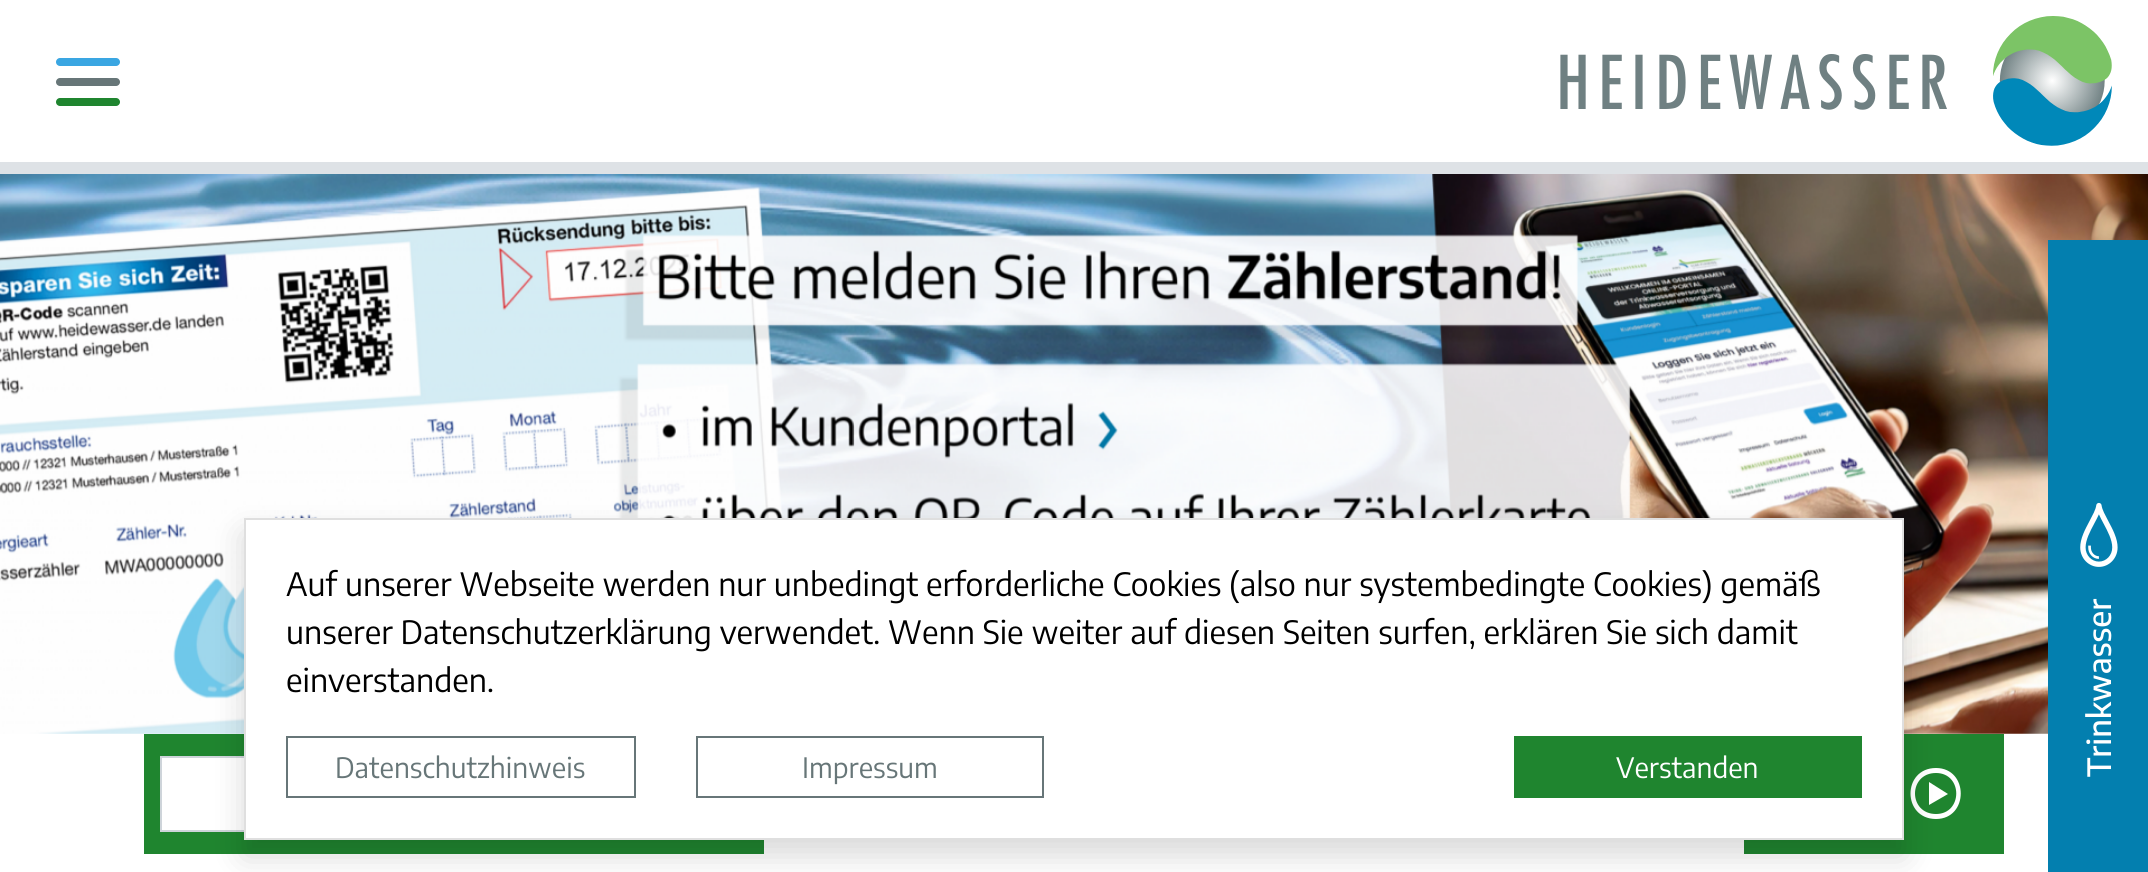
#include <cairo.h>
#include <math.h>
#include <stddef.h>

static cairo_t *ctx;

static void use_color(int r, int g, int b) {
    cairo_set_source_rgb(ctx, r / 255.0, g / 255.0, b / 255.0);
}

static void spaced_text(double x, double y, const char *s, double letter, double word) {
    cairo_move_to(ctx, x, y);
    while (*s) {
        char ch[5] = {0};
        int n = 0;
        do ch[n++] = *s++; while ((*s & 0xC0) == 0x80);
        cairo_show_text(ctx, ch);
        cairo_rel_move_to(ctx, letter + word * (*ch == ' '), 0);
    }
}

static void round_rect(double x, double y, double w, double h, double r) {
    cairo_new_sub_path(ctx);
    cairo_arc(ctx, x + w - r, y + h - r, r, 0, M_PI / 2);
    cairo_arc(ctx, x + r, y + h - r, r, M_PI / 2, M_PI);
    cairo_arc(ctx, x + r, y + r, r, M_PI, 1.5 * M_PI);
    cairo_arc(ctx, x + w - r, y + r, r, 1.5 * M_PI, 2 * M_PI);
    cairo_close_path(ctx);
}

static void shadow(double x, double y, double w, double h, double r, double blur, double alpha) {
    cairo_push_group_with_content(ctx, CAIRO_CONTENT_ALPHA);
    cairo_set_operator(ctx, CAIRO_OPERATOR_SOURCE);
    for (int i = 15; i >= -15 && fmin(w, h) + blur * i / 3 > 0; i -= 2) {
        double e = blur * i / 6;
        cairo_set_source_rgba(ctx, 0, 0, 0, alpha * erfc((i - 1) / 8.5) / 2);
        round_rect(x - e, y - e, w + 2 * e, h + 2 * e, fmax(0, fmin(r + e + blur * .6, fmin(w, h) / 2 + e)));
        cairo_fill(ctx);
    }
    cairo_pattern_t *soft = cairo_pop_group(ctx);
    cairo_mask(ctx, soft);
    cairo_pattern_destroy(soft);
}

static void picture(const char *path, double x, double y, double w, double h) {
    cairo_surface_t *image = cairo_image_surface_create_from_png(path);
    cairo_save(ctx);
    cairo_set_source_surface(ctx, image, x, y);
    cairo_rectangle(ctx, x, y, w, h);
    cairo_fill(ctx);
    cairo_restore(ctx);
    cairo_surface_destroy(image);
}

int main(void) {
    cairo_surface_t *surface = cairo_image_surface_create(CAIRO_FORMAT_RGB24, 2148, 872);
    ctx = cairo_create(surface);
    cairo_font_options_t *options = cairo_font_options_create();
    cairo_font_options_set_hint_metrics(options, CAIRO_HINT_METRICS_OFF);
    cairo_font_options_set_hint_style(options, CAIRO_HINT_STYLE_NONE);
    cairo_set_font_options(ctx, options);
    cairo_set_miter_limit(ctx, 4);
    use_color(255, 255, 255);
    cairo_paint(ctx);
    picture("img2.png", 0, 174, 2148, 560);
    use_color(31, 133, 47);
    cairo_rectangle(ctx, 144, 734, 620, 120);
    cairo_fill(ctx);
    use_color(255, 255, 255);
    cairo_rectangle(ctx, 162, 758, 82, 72);
    cairo_fill(ctx);
    cairo_rectangle(ctx, 161, 757, 504, 74);
    use_color(206, 212, 218);
    cairo_stroke(ctx);
    use_color(31, 133, 47);
    cairo_rectangle(ctx, 1744, 734, 260, 120);
    cairo_fill(ctx);
    use_color(255, 255, 255);
    cairo_new_path(ctx);
    cairo_move_to(ctx, 1936, 768);
    cairo_curve_to(ctx, 1902, 768, 1902, 819, 1936, 819);
    cairo_curve_to(ctx, 1969, 819, 1969, 768, 1936, 768);
    cairo_close_path(ctx);
    cairo_move_to(ctx, 1936, 814);
    cairo_curve_to(ctx, 1908, 814, 1908, 773, 1936, 773);
    cairo_curve_to(ctx, 1963, 773, 1963, 814, 1936, 814);
    cairo_close_path(ctx);
    cairo_move_to(ctx, 1929, 782);
    cairo_line_to(ctx, 1948, 794);
    cairo_line_to(ctx, 1929, 805);
    cairo_close_path(ctx);
    cairo_fill(ctx);
    use_color(0, 0, 0);
    shadow(244, 534, 1660, 322, 0, 16, 0.15);
    use_color(255, 255, 255);
    cairo_rectangle(ctx, 245, 519, 1658, 320);
    cairo_fill_preserve(ctx);
    use_color(223, 223, 223);
    cairo_stroke(ctx);
    cairo_select_font_face(ctx, "Encode Sans", CAIRO_FONT_SLANT_NORMAL, CAIRO_FONT_WEIGHT_NORMAL);
    cairo_set_font_size(ctx, 32);
    use_color(0, 0, 0);
    cairo_move_to(ctx, 286, 596);
    cairo_show_text(ctx, "Auf unserer Webseite werden nur unbedingt erforderliche Cookies (also nur systembedingte Cookies) gemäß");
    cairo_move_to(ctx, 286, 644);
    cairo_show_text(ctx, "unserer Datenschutzerklärung verwendet. Wenn Sie weiter auf diesen Seiten surfen, erklären Sie sich damit");
    cairo_move_to(ctx, 286, 692);
    cairo_show_text(ctx, "einverstanden.");
    cairo_rectangle(ctx, 287, 737, 348, 60);
    use_color(103, 118, 120);
    cairo_stroke(ctx);
    cairo_set_font_size(ctx, 28);
    cairo_move_to(ctx, 335, 778);
    cairo_show_text(ctx, "Datenschutzhinweis");
    cairo_rectangle(ctx, 697, 737, 346, 60);
    cairo_stroke(ctx);
    cairo_move_to(ctx, 802, 778);
    cairo_show_text(ctx, "Impressum");
    use_color(31, 133, 47);
    cairo_rectangle(ctx, 1514, 736, 348, 62);
    cairo_fill(ctx);
    use_color(255, 255, 255);
    cairo_move_to(ctx, 1616, 778);
    cairo_show_text(ctx, "Verstanden");
    use_color(222, 226, 230);
    cairo_rectangle(ctx, 0, 162, 2148, 12);
    cairo_fill(ctx);
    use_color(58, 166, 226);
    round_rect(56, 58, 64, 8, 4);
    cairo_fill(ctx);
    use_color(103, 118, 120);
    round_rect(56, 78, 64, 8, 4);
    cairo_fill(ctx);
    use_color(31, 133, 47);
    round_rect(56, 98, 64, 8, 4);
    cairo_fill(ctx);
    cairo_select_font_face(ctx, "Futura", CAIRO_FONT_SLANT_NORMAL, CAIRO_FONT_WEIGHT_NORMAL);
    cairo_set_font_size(ctx, 72);
    use_color(111, 128, 130);
    spaced_text(1556, 109, "HEIDEWASSER", 8, 0);
    picture("img1.png", 1993, 16, 119, 130);
    use_color(3, 127, 175);
    cairo_rectangle(ctx, 2048, 240, 100, 632);
    cairo_fill(ctx);
    picture("img3.png", 2080, 502, 38, 65);
    cairo_select_font_face(ctx, "Encode Sans Medium", CAIRO_FONT_SLANT_NORMAL, CAIRO_FONT_WEIGHT_NORMAL);
    cairo_set_font_size(ctx, 32);
    use_color(255, 255, 255);
    cairo_save(ctx);
    cairo_translate(ctx, 2111, 777);
    cairo_rotate(ctx, -90 * M_PI / 180);
    cairo_move_to(ctx, 0, 0);
    cairo_show_text(ctx, "Trinkwasser");
    cairo_restore(ctx);
    cairo_surface_write_to_png(surface, "result.png");
    cairo_font_options_destroy(options);
    cairo_destroy(ctx);
    cairo_surface_destroy(surface);
    return 0;
}
